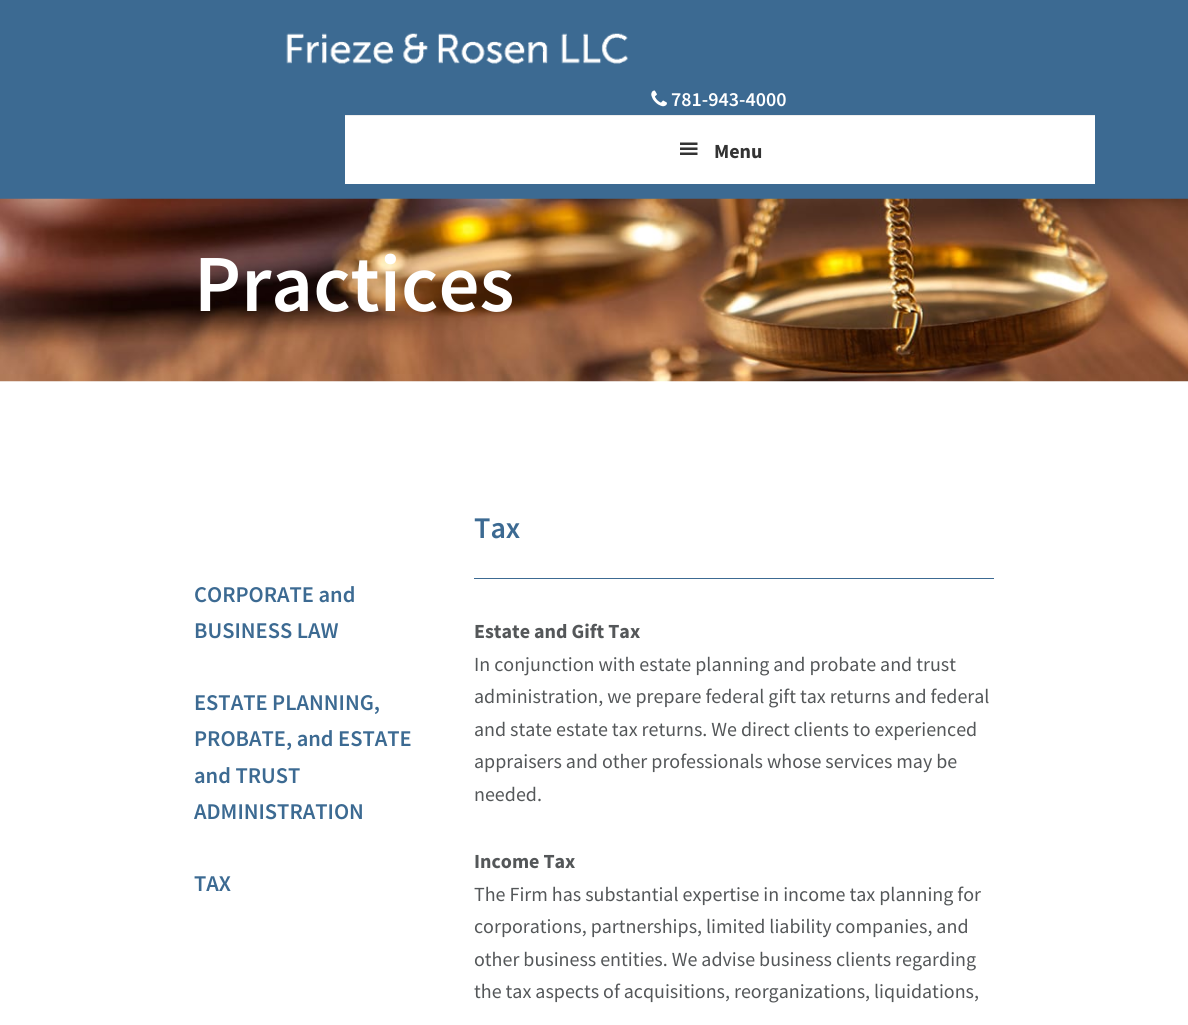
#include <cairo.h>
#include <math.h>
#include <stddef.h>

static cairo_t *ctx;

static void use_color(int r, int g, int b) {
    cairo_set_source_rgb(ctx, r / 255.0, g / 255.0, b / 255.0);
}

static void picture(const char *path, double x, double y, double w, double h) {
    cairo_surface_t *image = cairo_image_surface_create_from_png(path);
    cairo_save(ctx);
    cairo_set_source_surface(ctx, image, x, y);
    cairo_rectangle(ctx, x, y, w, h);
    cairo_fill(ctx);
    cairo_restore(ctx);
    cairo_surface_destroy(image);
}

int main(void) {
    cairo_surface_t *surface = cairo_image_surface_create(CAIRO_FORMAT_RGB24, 1188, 1025);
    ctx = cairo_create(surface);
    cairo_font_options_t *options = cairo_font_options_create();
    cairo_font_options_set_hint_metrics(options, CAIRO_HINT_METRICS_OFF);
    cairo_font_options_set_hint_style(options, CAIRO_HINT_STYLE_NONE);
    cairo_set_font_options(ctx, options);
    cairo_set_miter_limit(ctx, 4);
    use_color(255, 255, 255);
    cairo_paint(ctx);
    use_color(60, 106, 146);
    cairo_rectangle(ctx, 0, 0, 1188, 199);
    cairo_fill(ctx);
    picture("img1.png", 286, 33, 343, 31);
    picture("img2.png", 651, 90, 16, 17);
    cairo_select_font_face(ctx, "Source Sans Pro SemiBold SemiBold", CAIRO_FONT_SLANT_NORMAL, CAIRO_FONT_WEIGHT_NORMAL);
    cairo_set_font_size(ctx, 20);
    use_color(255, 255, 255);
    cairo_move_to(ctx, 671, 106);
    cairo_show_text(ctx, "781-943-4000");
    cairo_rectangle(ctx, 345, 116, 750, 68);
    cairo_fill(ctx);
    use_color(238, 238, 238);
    cairo_rectangle(ctx, 345, 115, 750, 1);
    cairo_fill(ctx);
    picture("img3.png", 680, 142, 18, 13);
    cairo_select_font_face(ctx, "Source Sans Pro", CAIRO_FONT_SLANT_NORMAL, CAIRO_FONT_WEIGHT_BOLD);
    use_color(51, 51, 51);
    cairo_move_to(ctx, 714, 158);
    cairo_show_text(ctx, "Menu");
    picture("img4.png", 0, 198, 1188, 184);
    cairo_select_font_face(ctx, "Source Sans Pro SemiBold SemiBold", CAIRO_FONT_SLANT_NORMAL, CAIRO_FONT_WEIGHT_NORMAL);
    cairo_set_font_size(ctx, 81);
    use_color(255, 255, 255);
    cairo_move_to(ctx, 194, 311);
    cairo_show_text(ctx, "Practices");
    cairo_set_font_size(ctx, 22.5);
    use_color(60, 106, 146);
    cairo_move_to(ctx, 194, 602);
    cairo_show_text(ctx, "CORPORATE and");
    cairo_move_to(ctx, 194, 638);
    cairo_show_text(ctx, "BUSINESS LAW");
    cairo_move_to(ctx, 194, 710);
    cairo_show_text(ctx, "ESTATE PLANNING,");
    cairo_move_to(ctx, 194, 746);
    cairo_show_text(ctx, "PROBATE, and ESTATE");
    cairo_move_to(ctx, 194, 783);
    cairo_show_text(ctx, "and TRUST");
    cairo_move_to(ctx, 194, 819);
    cairo_show_text(ctx, "ADMINISTRATION");
    cairo_move_to(ctx, 194, 891);
    cairo_show_text(ctx, "TAX");
    cairo_set_font_size(ctx, 30);
    cairo_move_to(ctx, 474, 538);
    cairo_show_text(ctx, "Tax");
    cairo_rectangle(ctx, 474, 578, 520, 1);
    cairo_fill(ctx);
    cairo_select_font_face(ctx, "Source Sans Pro", CAIRO_FONT_SLANT_NORMAL, CAIRO_FONT_WEIGHT_BOLD);
    cairo_set_font_size(ctx, 20);
    use_color(84, 87, 89);
    cairo_move_to(ctx, 474, 638);
    cairo_show_text(ctx, "Estate and Gift Tax");
    cairo_select_font_face(ctx, "Source Sans Pro", CAIRO_FONT_SLANT_NORMAL, CAIRO_FONT_WEIGHT_NORMAL);
    cairo_move_to(ctx, 474, 671);
    cairo_show_text(ctx, "In conjunction with estate planning and probate and trust");
    cairo_move_to(ctx, 474, 703);
    cairo_show_text(ctx, "administration, we prepare federal gift tax returns and federal");
    cairo_move_to(ctx, 474, 736);
    cairo_show_text(ctx, "and state estate tax returns. We direct clients to experienced");
    cairo_move_to(ctx, 474, 768);
    cairo_show_text(ctx, "appraisers and other professionals whose services may be");
    cairo_move_to(ctx, 474, 801);
    cairo_show_text(ctx, "needed.");
    cairo_select_font_face(ctx, "Source Sans Pro", CAIRO_FONT_SLANT_NORMAL, CAIRO_FONT_WEIGHT_BOLD);
    cairo_move_to(ctx, 474, 868);
    cairo_show_text(ctx, "Income Tax");
    cairo_select_font_face(ctx, "Source Sans Pro", CAIRO_FONT_SLANT_NORMAL, CAIRO_FONT_WEIGHT_NORMAL);
    cairo_move_to(ctx, 474, 901);
    cairo_show_text(ctx, "The Firm has substantial expertise in income tax planning for");
    cairo_move_to(ctx, 474, 933);
    cairo_show_text(ctx, "corporations, partnerships, limited liability companies, and");
    cairo_move_to(ctx, 474, 966);
    cairo_show_text(ctx, "other business entities. We advise business clients regarding");
    cairo_move_to(ctx, 474, 998);
    cairo_show_text(ctx, "the tax aspects of acquisitions, reorganizations, liquidations,");
    cairo_surface_write_to_png(surface, "result.png");
    cairo_font_options_destroy(options);
    cairo_destroy(ctx);
    cairo_surface_destroy(surface);
    return 0;
}
